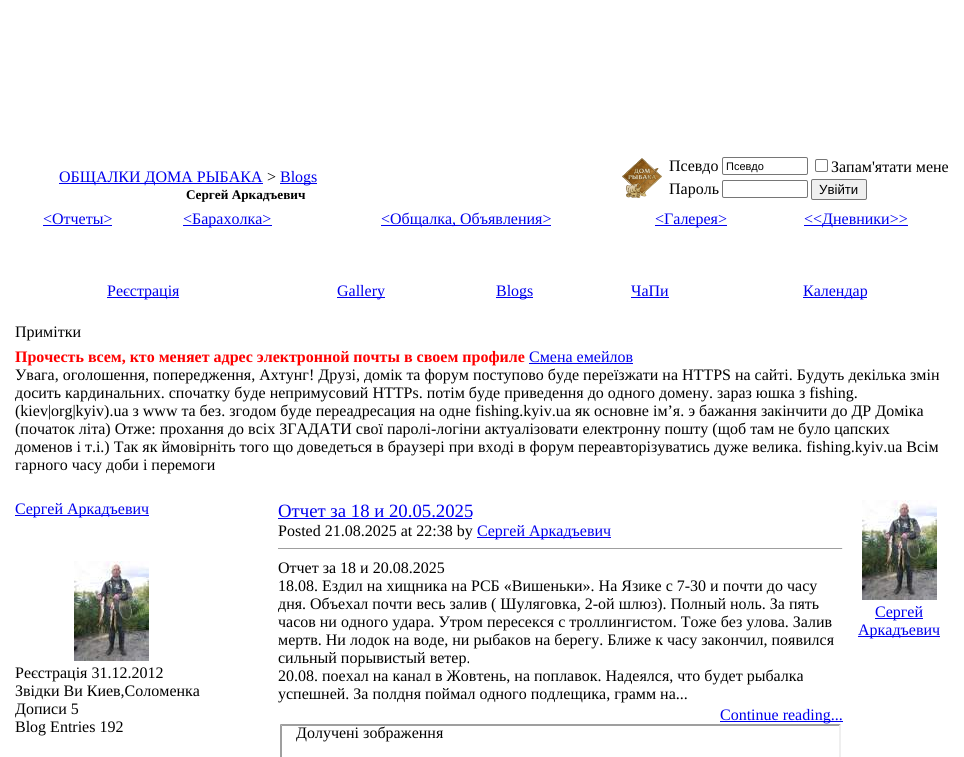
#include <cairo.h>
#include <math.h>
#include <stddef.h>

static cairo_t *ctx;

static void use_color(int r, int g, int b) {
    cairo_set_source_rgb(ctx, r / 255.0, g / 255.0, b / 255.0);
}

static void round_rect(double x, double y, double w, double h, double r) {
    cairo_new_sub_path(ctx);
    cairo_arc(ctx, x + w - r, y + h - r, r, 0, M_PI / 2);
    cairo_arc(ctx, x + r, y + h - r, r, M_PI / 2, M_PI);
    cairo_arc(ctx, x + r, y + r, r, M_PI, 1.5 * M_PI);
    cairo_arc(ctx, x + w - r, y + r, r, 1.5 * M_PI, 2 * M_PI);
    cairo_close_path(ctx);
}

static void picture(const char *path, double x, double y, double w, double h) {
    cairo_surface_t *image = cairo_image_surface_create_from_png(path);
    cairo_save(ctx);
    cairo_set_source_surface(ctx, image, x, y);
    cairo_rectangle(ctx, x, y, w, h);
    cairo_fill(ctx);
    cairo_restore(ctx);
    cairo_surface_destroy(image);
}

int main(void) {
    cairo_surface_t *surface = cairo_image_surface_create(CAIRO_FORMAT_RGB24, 964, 757);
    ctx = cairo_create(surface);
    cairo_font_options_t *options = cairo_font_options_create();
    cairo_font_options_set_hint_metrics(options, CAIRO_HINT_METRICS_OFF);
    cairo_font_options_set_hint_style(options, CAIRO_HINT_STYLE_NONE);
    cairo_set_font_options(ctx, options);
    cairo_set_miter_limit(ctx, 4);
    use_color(255, 255, 255);
    cairo_paint(ctx);
    use_color(0, 0, 238);
    cairo_rectangle(ctx, 59, 183, 204, 1);
    cairo_fill(ctx);
    cairo_select_font_face(ctx, "Liberation Serif", CAIRO_FONT_SLANT_NORMAL, CAIRO_FONT_WEIGHT_NORMAL);
    cairo_set_font_size(ctx, 16);
    cairo_move_to(ctx, 59, 182);
    cairo_show_text(ctx, "ОБЩАЛКИ ДОМА РЫБАКА");
    use_color(0, 0, 0);
    cairo_move_to(ctx, 267, 182);
    cairo_show_text(ctx, ">");
    use_color(0, 0, 238);
    cairo_rectangle(ctx, 280, 183, 37, 1);
    cairo_fill(ctx);
    cairo_move_to(ctx, 280, 182);
    cairo_show_text(ctx, "Blogs");
    cairo_select_font_face(ctx, "Liberation Serif", CAIRO_FONT_SLANT_NORMAL, CAIRO_FONT_WEIGHT_BOLD);
    cairo_set_font_size(ctx, 13.25);
    use_color(0, 0, 0);
    cairo_move_to(ctx, 186, 199);
    cairo_show_text(ctx, "Сергей Аркадъевич");
    picture("img1.png", 622, 158, 40, 40);
    cairo_select_font_face(ctx, "Liberation Serif", CAIRO_FONT_SLANT_NORMAL, CAIRO_FONT_WEIGHT_NORMAL);
    cairo_set_font_size(ctx, 16);
    cairo_move_to(ctx, 669, 171);
    cairo_show_text(ctx, "Псевдо");
    round_rect(722.5, 157.5, 85, 17, 1.5);
    use_color(118, 118, 118);
    cairo_set_line_width(ctx, 1);
    cairo_stroke(ctx);
    cairo_select_font_face(ctx, "Liberation Sans", CAIRO_FONT_SLANT_NORMAL, CAIRO_FONT_WEIGHT_NORMAL);
    cairo_set_font_size(ctx, 11);
    use_color(0, 0, 0);
    cairo_move_to(ctx, 726, 170);
    cairo_show_text(ctx, "Псевдо");
    round_rect(815.5, 159.5, 12, 12, 1.5);
    use_color(118, 118, 118);
    cairo_stroke(ctx);
    cairo_select_font_face(ctx, "Liberation Serif", CAIRO_FONT_SLANT_NORMAL, CAIRO_FONT_WEIGHT_NORMAL);
    cairo_set_font_size(ctx, 16);
    use_color(0, 0, 0);
    cairo_move_to(ctx, 831, 172);
    cairo_show_text(ctx, "Запам'ятати мене");
    cairo_move_to(ctx, 669, 194);
    cairo_show_text(ctx, "Пароль");
    round_rect(722.5, 180.5, 85, 17, 1.5);
    use_color(118, 118, 118);
    cairo_stroke(ctx);
    use_color(239, 239, 239);
    round_rect(811.5, 179.5, 55, 20, 1.5);
    cairo_fill_preserve(ctx);
    use_color(118, 118, 118);
    cairo_stroke(ctx);
    cairo_select_font_face(ctx, "Liberation Sans", CAIRO_FONT_SLANT_NORMAL, CAIRO_FONT_WEIGHT_NORMAL);
    cairo_set_font_size(ctx, 13.25);
    use_color(0, 0, 0);
    cairo_move_to(ctx, 819, 194);
    cairo_show_text(ctx, "Увійти");
    cairo_select_font_face(ctx, "Liberation Serif", CAIRO_FONT_SLANT_NORMAL, CAIRO_FONT_WEIGHT_NORMAL);
    cairo_set_font_size(ctx, 16);
    use_color(0, 0, 238);
    cairo_move_to(ctx, 43, 224);
    cairo_show_text(ctx, "<Отчеты>");
    cairo_rectangle(ctx, 43, 225, 69, 1);
    cairo_fill(ctx);
    cairo_rectangle(ctx, 183, 225, 89, 1);
    cairo_fill(ctx);
    cairo_move_to(ctx, 183, 224);
    cairo_show_text(ctx, "<Барахолка>");
    cairo_rectangle(ctx, 381, 225, 170, 1);
    cairo_fill(ctx);
    cairo_move_to(ctx, 381, 224);
    cairo_show_text(ctx, "<Общалка, Объявления>");
    cairo_rectangle(ctx, 655, 225, 72, 1);
    cairo_fill(ctx);
    cairo_move_to(ctx, 655, 224);
    cairo_show_text(ctx, "<Галерея>");
    cairo_rectangle(ctx, 804, 225, 104, 1);
    cairo_fill(ctx);
    cairo_move_to(ctx, 804, 224);
    cairo_show_text(ctx, "<<Дневники>>");
    cairo_rectangle(ctx, 107, 297, 72, 1);
    cairo_fill(ctx);
    cairo_move_to(ctx, 107, 296);
    cairo_show_text(ctx, "Реєстрація");
    cairo_rectangle(ctx, 337, 297, 48, 1);
    cairo_fill(ctx);
    cairo_move_to(ctx, 337, 296);
    cairo_show_text(ctx, "Gallery");
    cairo_rectangle(ctx, 496, 297, 37, 1);
    cairo_fill(ctx);
    cairo_move_to(ctx, 496, 296);
    cairo_show_text(ctx, "Blogs");
    cairo_move_to(ctx, 631, 296);
    cairo_show_text(ctx, "ЧаПи");
    cairo_rectangle(ctx, 631, 297, 38, 1);
    cairo_fill(ctx);
    cairo_rectangle(ctx, 803, 297, 64, 1);
    cairo_fill(ctx);
    cairo_move_to(ctx, 803, 296);
    cairo_show_text(ctx, "Календар");
    use_color(0, 0, 0);
    cairo_move_to(ctx, 15, 337);
    cairo_show_text(ctx, "Примітки");
    cairo_select_font_face(ctx, "Liberation Serif", CAIRO_FONT_SLANT_NORMAL, CAIRO_FONT_WEIGHT_BOLD);
    use_color(255, 0, 0);
    cairo_move_to(ctx, 15, 362);
    cairo_show_text(ctx, "Прочесть всем, кто меняет адрес электронной почты в своем профиле");
    cairo_select_font_face(ctx, "Liberation Serif", CAIRO_FONT_SLANT_NORMAL, CAIRO_FONT_WEIGHT_NORMAL);
    use_color(0, 0, 238);
    cairo_move_to(ctx, 529, 362);
    cairo_show_text(ctx, "Смена емейлов");
    cairo_rectangle(ctx, 529, 363, 104, 1);
    cairo_fill(ctx);
    use_color(0, 0, 0);
    cairo_move_to(ctx, 15, 380);
    cairo_show_text(ctx, "Увага, оголошення, попередження, Ахтунг! Друзі, домік та форум поступово буде переїзжати на HTTPS на сайті. Будуть декілька змін");
    cairo_move_to(ctx, 15, 398);
    cairo_show_text(ctx, "досить кардинальних. спочатку буде непримусовий HTTPs. потім буде приведення до одного домену. зараз юшка з fishing.");
    cairo_move_to(ctx, 15, 416);
    cairo_show_text(ctx, "(kiev|org|kyiv).ua з www та без. згодом буде переадресация на одне fishing.kyiv.ua як основне імʼя. э бажання закінчити до ДР Доміка");
    cairo_move_to(ctx, 15, 434);
    cairo_show_text(ctx, "(початок літа) Отже: прохання до всіх ЗГАДАТИ свої паролі-логіни актуалізовати електронну пошту (щоб там не було цапских");
    cairo_move_to(ctx, 15, 452);
    cairo_show_text(ctx, "доменов і т.і.) Так як ймовірніть того що доведеться в браузері при вході в форум переавторізуватись дуже велика. fishing.kyiv.ua Всім");
    cairo_move_to(ctx, 15, 470);
    cairo_show_text(ctx, "гарного часу доби і перемоги");
    use_color(0, 0, 238);
    cairo_rectangle(ctx, 15, 515, 134, 1);
    cairo_fill(ctx);
    cairo_move_to(ctx, 15, 514);
    cairo_show_text(ctx, "Сергей Аркадъевич");
    picture("img2.png", 74, 561, 75, 100);
    use_color(0, 0, 0);
    cairo_move_to(ctx, 15, 678);
    cairo_show_text(ctx, "Реєстрація 31.12.2012");
    cairo_move_to(ctx, 15, 696);
    cairo_show_text(ctx, "Звідки Ви Киев,Соломенка");
    cairo_move_to(ctx, 15, 714);
    cairo_show_text(ctx, "Дописи 5");
    cairo_move_to(ctx, 15, 732);
    cairo_show_text(ctx, "Blog Entries 192");
    cairo_set_font_size(ctx, 18.75);
    use_color(0, 0, 238);
    cairo_move_to(ctx, 278, 517);
    cairo_show_text(ctx, "Отчет за 18 и 20.05.2025");
    cairo_rectangle(ctx, 278, 518, 194, 1);
    cairo_fill(ctx);
    cairo_set_font_size(ctx, 16);
    use_color(0, 0, 0);
    cairo_move_to(ctx, 278, 536);
    cairo_show_text(ctx, "Posted 21.08.2025 at 22:38 by");
    use_color(0, 0, 238);
    cairo_rectangle(ctx, 477, 537, 134, 1);
    cairo_fill(ctx);
    cairo_move_to(ctx, 477, 536);
    cairo_show_text(ctx, "Сергей Аркадъевич");
    use_color(159, 159, 159);
    cairo_rectangle(ctx, 278, 548, 565, 1);
    cairo_fill(ctx);
    use_color(238, 238, 238);
    cairo_rectangle(ctx, 842, 548, 1, 1);
    cairo_fill(ctx);
    use_color(0, 0, 0);
    cairo_move_to(ctx, 278, 573);
    cairo_show_text(ctx, "Отчет за 18 и 20.08.2025");
    cairo_move_to(ctx, 278, 591);
    cairo_show_text(ctx, "18.08. Ездил на хищника на РСБ «Вишеньки». На Язике с 7-30 и почти до часу");
    cairo_move_to(ctx, 278, 609);
    cairo_show_text(ctx, "дня. Объехал почти весь залив ( Шуляговка, 2-ой шлюз). Полный ноль. За пять");
    cairo_move_to(ctx, 278, 627);
    cairo_show_text(ctx, "часов ни одного удара. Утром пересекся с троллингистом. Тоже без улова. Залив");
    cairo_move_to(ctx, 278, 645);
    cairo_show_text(ctx, "мертв. Ни лодок на воде, ни рыбаков на берегу. Ближе к часу закончил, появился");
    cairo_move_to(ctx, 278, 663);
    cairo_show_text(ctx, "сильный порывистый ветер.");
    cairo_move_to(ctx, 278, 681);
    cairo_show_text(ctx, "20.08. поехал на канал в Жовтень, на поплавок. Надеялся, что будет рыбалка");
    cairo_move_to(ctx, 278, 699);
    cairo_show_text(ctx, "успешней. За полдня поймал одного подлещика, грамм на...");
    use_color(0, 0, 238);
    cairo_rectangle(ctx, 720, 721, 123, 1);
    cairo_fill(ctx);
    cairo_move_to(ctx, 720, 720);
    cairo_show_text(ctx, "Continue reading...");
    use_color(159, 159, 159);
    cairo_new_path(ctx);
    cairo_move_to(ctx, 280, 724);
    cairo_line_to(ctx, 841, 724);
    cairo_line_to(ctx, 839, 726);
    cairo_line_to(ctx, 282, 726);
    cairo_close_path(ctx);
    cairo_fill(ctx);
    use_color(239, 239, 239);
    cairo_new_path(ctx);
    cairo_move_to(ctx, 841, 724);
    cairo_line_to(ctx, 841, 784);
    cairo_line_to(ctx, 839, 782);
    cairo_line_to(ctx, 839, 726);
    cairo_close_path(ctx);
    cairo_fill(ctx);
    use_color(159, 159, 159);
    cairo_new_path(ctx);
    cairo_move_to(ctx, 280, 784);
    cairo_line_to(ctx, 280, 724);
    cairo_line_to(ctx, 282, 726);
    cairo_line_to(ctx, 282, 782);
    cairo_close_path(ctx);
    cairo_fill(ctx);
    use_color(0, 0, 0);
    cairo_move_to(ctx, 296, 738);
    cairo_show_text(ctx, "Долучені зображення");
    picture("img2.png", 862, 500, 75, 100);
    use_color(0, 0, 238);
    cairo_rectangle(ctx, 875, 618, 48, 1);
    cairo_fill(ctx);
    cairo_move_to(ctx, 875, 617);
    cairo_show_text(ctx, "Сергей");
    cairo_rectangle(ctx, 858, 636, 82, 1);
    cairo_fill(ctx);
    cairo_move_to(ctx, 858, 635);
    cairo_show_text(ctx, "Аркадъевич");
    cairo_surface_write_to_png(surface, "result.png");
    cairo_font_options_destroy(options);
    cairo_destroy(ctx);
    cairo_surface_destroy(surface);
    return 0;
}
